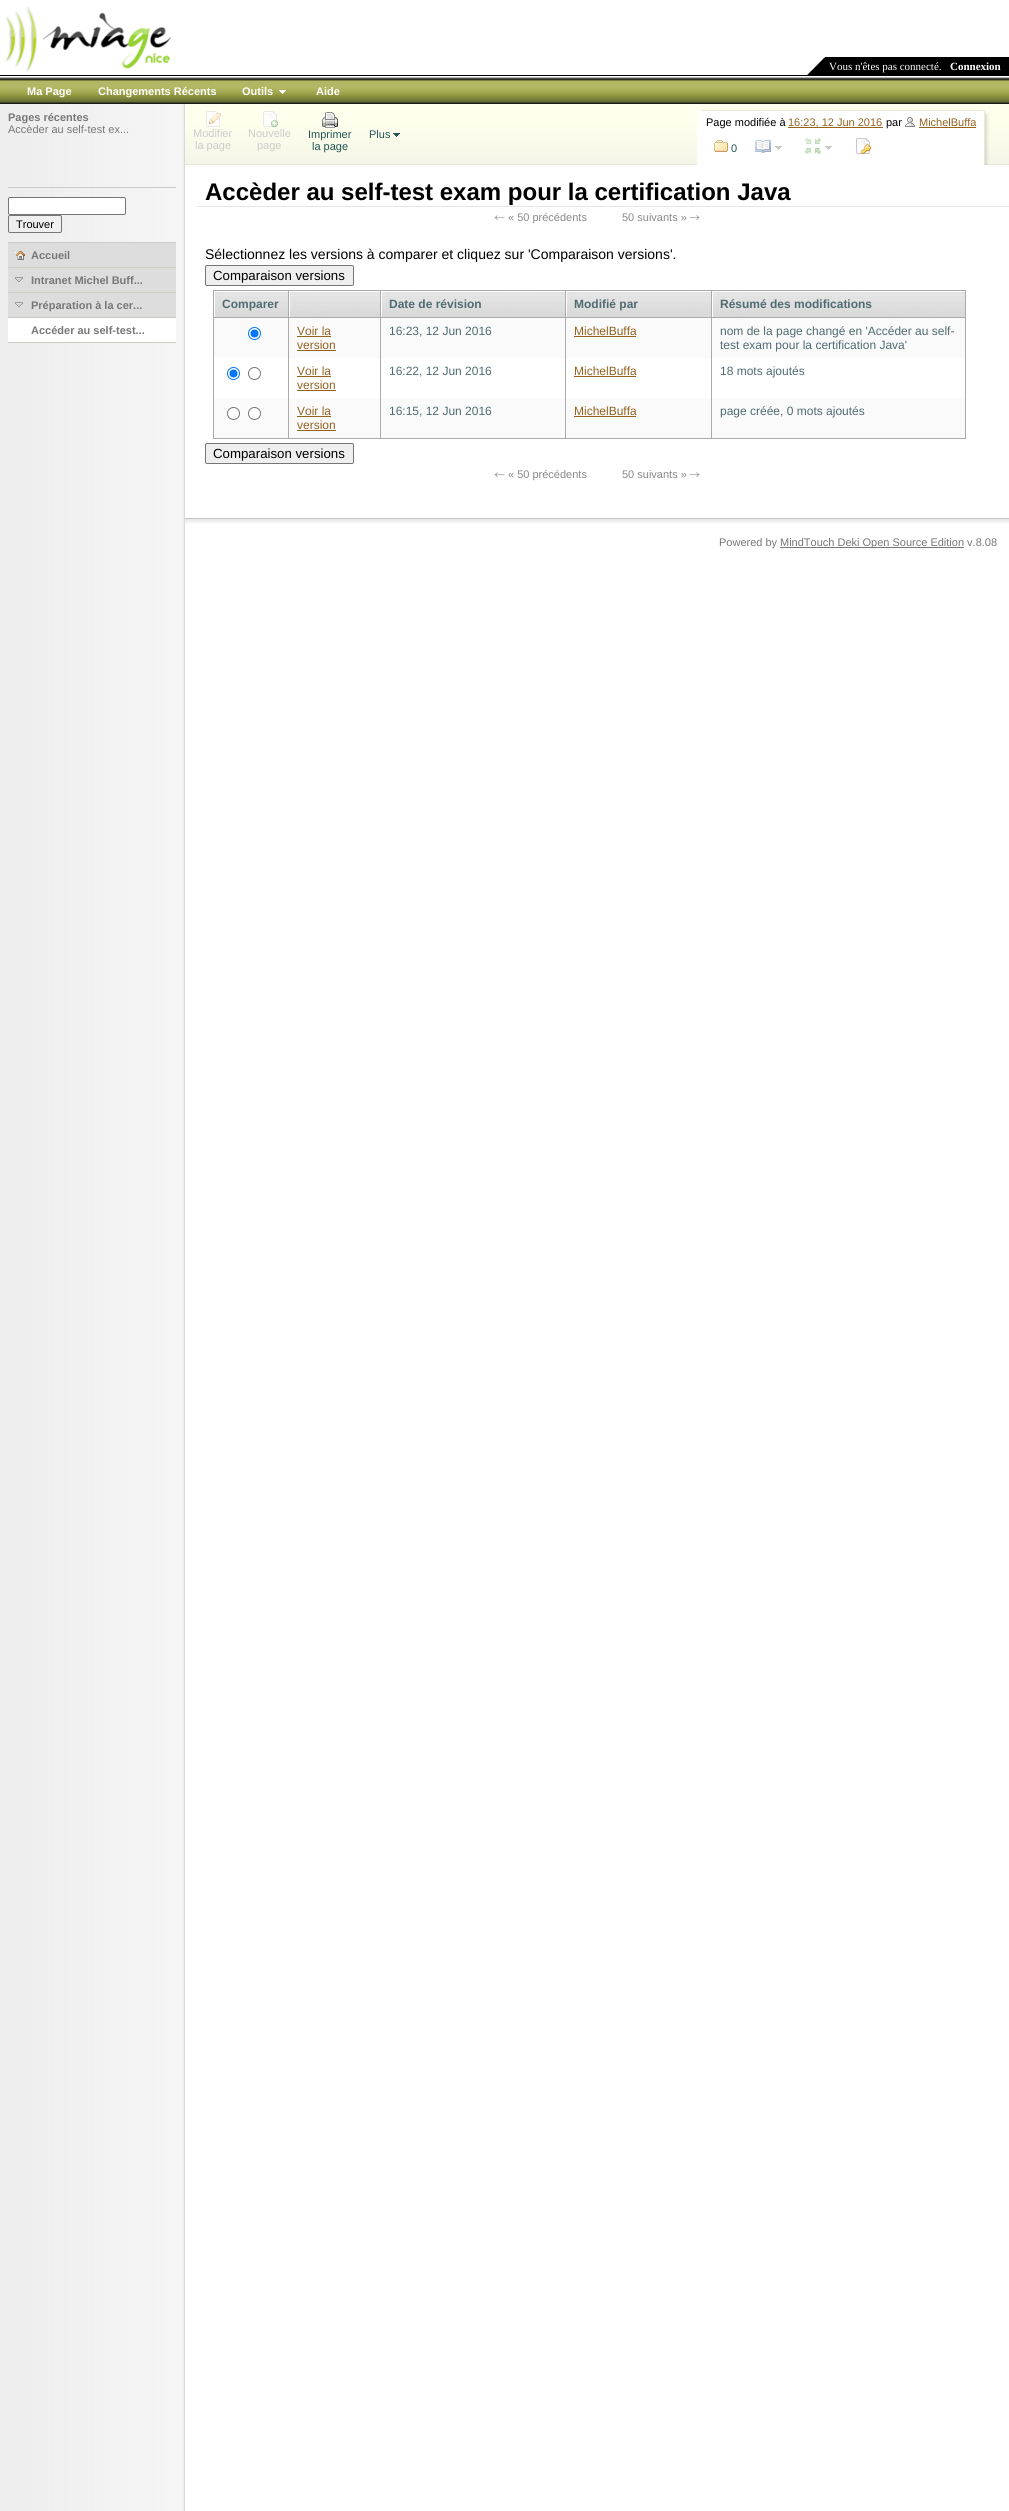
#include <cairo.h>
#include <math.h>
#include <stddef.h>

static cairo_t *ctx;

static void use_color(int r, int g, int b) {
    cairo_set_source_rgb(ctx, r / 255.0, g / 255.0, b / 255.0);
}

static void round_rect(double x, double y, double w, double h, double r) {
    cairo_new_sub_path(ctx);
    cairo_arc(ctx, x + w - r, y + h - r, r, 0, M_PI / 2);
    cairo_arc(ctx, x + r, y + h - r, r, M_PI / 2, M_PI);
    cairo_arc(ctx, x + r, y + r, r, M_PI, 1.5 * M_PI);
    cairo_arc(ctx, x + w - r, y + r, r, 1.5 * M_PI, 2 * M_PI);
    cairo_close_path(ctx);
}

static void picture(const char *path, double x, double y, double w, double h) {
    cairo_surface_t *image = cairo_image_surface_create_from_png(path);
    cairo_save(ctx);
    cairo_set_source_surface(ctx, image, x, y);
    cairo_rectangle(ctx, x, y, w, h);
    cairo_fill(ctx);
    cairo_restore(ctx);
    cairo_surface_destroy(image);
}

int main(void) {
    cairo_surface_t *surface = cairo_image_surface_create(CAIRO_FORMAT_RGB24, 1009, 2511);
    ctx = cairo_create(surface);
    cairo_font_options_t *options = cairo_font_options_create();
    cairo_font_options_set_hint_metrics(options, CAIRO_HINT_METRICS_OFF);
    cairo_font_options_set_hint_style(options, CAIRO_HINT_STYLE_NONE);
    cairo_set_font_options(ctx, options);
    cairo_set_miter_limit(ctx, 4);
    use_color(255, 255, 255);
    cairo_paint(ctx);
    picture("img1.png", 0, 104, 185, 2407);
    picture("img2.png", 5, 6, 166, 66);
    use_color(0, 0, 0);
    cairo_rectangle(ctx, 825, 57, 184, 18);
    cairo_fill(ctx);
    picture("img3.png", 807, 57, 18, 18);
    cairo_select_font_face(ctx, "Liberation Serif", CAIRO_FONT_SLANT_NORMAL, CAIRO_FONT_WEIGHT_NORMAL);
    cairo_set_font_size(ctx, 11);
    use_color(255, 255, 255);
    cairo_move_to(ctx, 829, 70);
    cairo_show_text(ctx, "Vous n'êtes pas connecté.");
    cairo_select_font_face(ctx, "Liberation Serif", CAIRO_FONT_SLANT_NORMAL, CAIRO_FONT_WEIGHT_BOLD);
    cairo_move_to(ctx, 950, 70);
    cairo_show_text(ctx, "Connexion");
    picture("img4.png", 0, 75, 1009, 29);
    cairo_select_font_face(ctx, "Liberation Sans", CAIRO_FONT_SLANT_NORMAL, CAIRO_FONT_WEIGHT_BOLD);
    cairo_move_to(ctx, 27, 95);
    cairo_show_text(ctx, "Ma Page");
    cairo_move_to(ctx, 98, 95);
    cairo_show_text(ctx, "Changements Récents");
    cairo_move_to(ctx, 242, 95);
    cairo_show_text(ctx, "Outils");
    picture("img5.png", 279, 90, 7, 4);
    cairo_move_to(ctx, 316, 95);
    cairo_show_text(ctx, "Aide");
    use_color(119, 119, 119);
    cairo_move_to(ctx, 8, 121);
    cairo_show_text(ctx, "Pages récentes");
    cairo_select_font_face(ctx, "Liberation Sans", CAIRO_FONT_SLANT_NORMAL, CAIRO_FONT_WEIGHT_NORMAL);
    cairo_move_to(ctx, 8, 133);
    cairo_show_text(ctx, "Accèder au self-test ex...");
    use_color(202, 202, 202);
    cairo_rectangle(ctx, 8, 187, 168, 1);
    cairo_fill(ctx);
    cairo_rectangle(ctx, 8, 242, 168, 1);
    cairo_fill(ctx);
    use_color(255, 255, 255);
    round_rect(8.5, 197.5, 117, 17, 1.5);
    cairo_fill_preserve(ctx);
    use_color(118, 118, 118);
    cairo_set_line_width(ctx, 1);
    cairo_stroke(ctx);
    round_rect(8.5, 215.5, 53, 17, 1.5);
    cairo_stroke(ctx);
    use_color(0, 0, 0);
    cairo_move_to(ctx, 16, 228);
    cairo_show_text(ctx, "Trouver");
    use_color(221, 221, 221);
    cairo_rectangle(ctx, 8, 243, 168, 24);
    cairo_fill(ctx);
    use_color(206, 202, 195);
    cairo_rectangle(ctx, 8, 267, 168, 1);
    cairo_fill(ctx);
    picture("img6.png", 15, 251, 10, 9);
    cairo_select_font_face(ctx, "Liberation Sans", CAIRO_FONT_SLANT_NORMAL, CAIRO_FONT_WEIGHT_BOLD);
    use_color(119, 119, 119);
    cairo_move_to(ctx, 31, 259);
    cairo_show_text(ctx, "Accueil");
    use_color(221, 221, 221);
    cairo_rectangle(ctx, 8, 268, 168, 24);
    cairo_fill(ctx);
    use_color(206, 202, 195);
    cairo_rectangle(ctx, 8, 292, 168, 1);
    cairo_fill(ctx);
    picture("img7.png", 15, 277, 8, 5);
    use_color(119, 119, 119);
    cairo_move_to(ctx, 31, 284);
    cairo_show_text(ctx, "Intranet Michel Buff...");
    use_color(221, 221, 221);
    cairo_rectangle(ctx, 8, 293, 168, 24);
    cairo_fill(ctx);
    use_color(206, 202, 195);
    cairo_rectangle(ctx, 8, 317, 168, 1);
    cairo_fill(ctx);
    picture("img7.png", 15, 302, 8, 5);
    use_color(119, 119, 119);
    cairo_move_to(ctx, 31, 309);
    cairo_show_text(ctx, "Préparation à la cer...");
    use_color(255, 255, 255);
    cairo_rectangle(ctx, 8, 318, 168, 24);
    cairo_fill(ctx);
    use_color(206, 202, 195);
    cairo_rectangle(ctx, 8, 342, 168, 1);
    cairo_fill(ctx);
    use_color(119, 119, 119);
    cairo_move_to(ctx, 31, 334);
    cairo_show_text(ctx, "Accéder au self-test...");
    picture("img8.png", 185, 104, 824, 61);
    picture("img9.png", 206, 111, 15, 16);
    cairo_select_font_face(ctx, "Liberation Sans", CAIRO_FONT_SLANT_NORMAL, CAIRO_FONT_WEIGHT_NORMAL);
    use_color(202, 202, 202);
    cairo_move_to(ctx, 193, 137);
    cairo_show_text(ctx, "Modifier");
    cairo_move_to(ctx, 195, 149);
    cairo_show_text(ctx, "la page");
    picture("img10.png", 263, 111, 15, 16);
    cairo_move_to(ctx, 248, 137);
    cairo_show_text(ctx, "Nouvelle");
    cairo_move_to(ctx, 257, 149);
    cairo_show_text(ctx, "page");
    picture("img11.png", 322, 112, 16, 16);
    use_color(32, 83, 82);
    cairo_move_to(ctx, 308, 138);
    cairo_show_text(ctx, "Imprimer");
    cairo_move_to(ctx, 312, 150);
    cairo_show_text(ctx, "la page");
    cairo_move_to(ctx, 369, 138);
    cairo_show_text(ctx, "Plus");
    picture("img12.png", 393, 133, 7, 4);
    use_color(255, 255, 255);
    cairo_rectangle(ctx, 697, 110, 4, 55);
    cairo_fill(ctx);
    picture("img13.png", 701, 110, 289, 55);
    use_color(0, 0, 0);
    cairo_move_to(ctx, 706, 126);
    cairo_show_text(ctx, "Page modifiée à");
    use_color(149, 98, 32);
    cairo_rectangle(ctx, 788, 127, 95, 1);
    cairo_fill(ctx);
    cairo_move_to(ctx, 788, 126);
    cairo_show_text(ctx, "16:23, 12 Jun 2016");
    use_color(0, 0, 0);
    cairo_move_to(ctx, 886, 126);
    cairo_show_text(ctx, "par");
    picture("img14.png", 905, 117, 10, 10);
    use_color(149, 98, 32);
    cairo_move_to(ctx, 919, 126);
    cairo_show_text(ctx, "MichelBuffa");
    cairo_rectangle(ctx, 919, 127, 57, 1);
    cairo_fill(ctx);
    picture("img15.png", 714, 140, 14, 12);
    use_color(32, 83, 82);
    cairo_move_to(ctx, 731, 152);
    cairo_show_text(ctx, "0");
    picture("img16.png", 755, 139, 16, 14);
    picture("img17.png", 775, 146, 7, 4);
    picture("img18.png", 805, 138, 16, 16);
    picture("img17.png", 825, 146, 7, 4);
    picture("img19.png", 856, 138, 15, 16);
    use_color(230, 230, 230);
    cairo_rectangle(ctx, 197, 206, 812, 1);
    cairo_fill(ctx);
    cairo_select_font_face(ctx, "Liberation Sans", CAIRO_FONT_SLANT_NORMAL, CAIRO_FONT_WEIGHT_BOLD);
    cairo_set_font_size(ctx, 24);
    use_color(0, 0, 0);
    cairo_move_to(ctx, 205, 200);
    cairo_show_text(ctx, "Accèder au self-test exam pour la certification Java");
    picture("img20.png", 494, 215, 11, 5);
    cairo_select_font_face(ctx, "Liberation Sans", CAIRO_FONT_SLANT_NORMAL, CAIRO_FONT_WEIGHT_NORMAL);
    cairo_set_font_size(ctx, 11);
    use_color(136, 136, 136);
    cairo_move_to(ctx, 508, 221);
    cairo_show_text(ctx, "« 50 précédents");
    cairo_move_to(ctx, 622, 221);
    cairo_show_text(ctx, "50 suivants »");
    picture("img21.png", 689, 215, 11, 5);
    cairo_set_font_size(ctx, 14);
    use_color(0, 0, 0);
    cairo_move_to(ctx, 205, 259);
    cairo_show_text(ctx, "Sélectionnez les versions à comparer et cliquez sur 'Comparaison versions'.");
    use_color(239, 239, 239);
    round_rect(205.5, 265.5, 148, 20, 1.5);
    cairo_fill_preserve(ctx);
    use_color(118, 118, 118);
    cairo_stroke(ctx);
    cairo_set_font_size(ctx, 13.25);
    use_color(0, 0, 0);
    cairo_move_to(ctx, 213, 280);
    cairo_show_text(ctx, "Comparaison versions");
    use_color(170, 170, 170);
    cairo_rectangle(ctx, 213, 438, 753, 1);
    cairo_fill(ctx);
    cairo_rectangle(ctx, 213, 290, 1, 149);
    cairo_fill(ctx);
    picture("img22.png", 214, 291, 74, 26);
    cairo_rectangle(ctx, 214, 290, 752, 1);
    cairo_fill(ctx);
    cairo_rectangle(ctx, 288, 290, 1, 148);
    cairo_fill(ctx);
    cairo_rectangle(ctx, 214, 317, 75, 1);
    cairo_fill(ctx);
    cairo_select_font_face(ctx, "Liberation Sans", CAIRO_FONT_SLANT_NORMAL, CAIRO_FONT_WEIGHT_BOLD);
    cairo_set_font_size(ctx, 12);
    use_color(79, 107, 114);
    cairo_move_to(ctx, 222, 308);
    cairo_show_text(ctx, "Comparer");
    picture("img23.png", 289, 291, 91, 26);
    use_color(170, 170, 170);
    cairo_rectangle(ctx, 380, 290, 1, 148);
    cairo_fill(ctx);
    cairo_rectangle(ctx, 289, 317, 92, 1);
    cairo_fill(ctx);
    picture("img24.png", 381, 291, 184, 26);
    cairo_rectangle(ctx, 565, 290, 1, 148);
    cairo_fill(ctx);
    cairo_rectangle(ctx, 381, 317, 185, 1);
    cairo_fill(ctx);
    use_color(79, 107, 114);
    cairo_move_to(ctx, 389, 308);
    cairo_show_text(ctx, "Date de révision");
    picture("img25.png", 566, 291, 145, 26);
    use_color(170, 170, 170);
    cairo_rectangle(ctx, 711, 290, 1, 148);
    cairo_fill(ctx);
    cairo_rectangle(ctx, 566, 317, 146, 1);
    cairo_fill(ctx);
    use_color(79, 107, 114);
    cairo_move_to(ctx, 574, 308);
    cairo_show_text(ctx, "Modifié par");
    picture("img26.png", 712, 291, 253, 26);
    use_color(170, 170, 170);
    cairo_rectangle(ctx, 965, 290, 1, 148);
    cairo_fill(ctx);
    cairo_rectangle(ctx, 712, 317, 254, 1);
    cairo_fill(ctx);
    use_color(79, 107, 114);
    cairo_move_to(ctx, 720, 308);
    cairo_show_text(ctx, "Résumé des modifications");
    use_color(250, 250, 250);
    cairo_rectangle(ctx, 214, 318, 74, 40);
    cairo_fill(ctx);
    use_color(255, 255, 255);
    cairo_arc(ctx, 254.5, 333.5, 6, 0, 2 * M_PI);
    cairo_fill_preserve(ctx);
    use_color(0, 117, 255);
    cairo_stroke(ctx);
    cairo_arc(ctx, 254.5, 333.5, 4, 0, 2 * M_PI);
    cairo_fill(ctx);
    use_color(250, 250, 250);
    cairo_rectangle(ctx, 289, 318, 91, 40);
    cairo_fill(ctx);
    cairo_select_font_face(ctx, "Liberation Sans", CAIRO_FONT_SLANT_NORMAL, CAIRO_FONT_WEIGHT_NORMAL);
    use_color(149, 98, 32);
    cairo_move_to(ctx, 297, 335);
    cairo_show_text(ctx, "Voir la");
    cairo_rectangle(ctx, 297, 336, 34, 1);
    cairo_fill(ctx);
    cairo_move_to(ctx, 297, 349);
    cairo_show_text(ctx, "version");
    cairo_rectangle(ctx, 297, 350, 39, 1);
    cairo_fill(ctx);
    use_color(250, 250, 250);
    cairo_rectangle(ctx, 381, 318, 184, 40);
    cairo_fill(ctx);
    use_color(79, 107, 114);
    cairo_move_to(ctx, 389, 335);
    cairo_show_text(ctx, "16:23, 12 Jun 2016");
    use_color(250, 250, 250);
    cairo_rectangle(ctx, 566, 318, 145, 40);
    cairo_fill(ctx);
    use_color(149, 98, 32);
    cairo_move_to(ctx, 574, 335);
    cairo_show_text(ctx, "MichelBuffa");
    cairo_rectangle(ctx, 574, 336, 62, 1);
    cairo_fill(ctx);
    use_color(250, 250, 250);
    cairo_rectangle(ctx, 712, 318, 253, 40);
    cairo_fill(ctx);
    use_color(79, 107, 114);
    cairo_move_to(ctx, 720, 335);
    cairo_show_text(ctx, "nom de la page changé en 'Accéder au self-");
    cairo_move_to(ctx, 720, 349);
    cairo_show_text(ctx, "test exam pour la certification Java'");
    cairo_new_path(ctx);
    cairo_arc(ctx, 233.5, 373.5, 6, 0, 2 * M_PI);
    use_color(0, 117, 255);
    cairo_stroke(ctx);
    cairo_arc(ctx, 233.5, 373.5, 4, 0, 2 * M_PI);
    cairo_fill(ctx);
    cairo_arc(ctx, 254.5, 373.5, 6, 0, 2 * M_PI);
    use_color(118, 118, 118);
    cairo_stroke(ctx);
    use_color(149, 98, 32);
    cairo_move_to(ctx, 297, 375);
    cairo_show_text(ctx, "Voir la");
    cairo_rectangle(ctx, 297, 376, 34, 1);
    cairo_fill(ctx);
    cairo_move_to(ctx, 297, 389);
    cairo_show_text(ctx, "version");
    cairo_rectangle(ctx, 297, 390, 39, 1);
    cairo_fill(ctx);
    use_color(79, 107, 114);
    cairo_move_to(ctx, 389, 375);
    cairo_show_text(ctx, "16:22, 12 Jun 2016");
    use_color(149, 98, 32);
    cairo_move_to(ctx, 574, 375);
    cairo_show_text(ctx, "MichelBuffa");
    cairo_rectangle(ctx, 574, 376, 62, 1);
    cairo_fill(ctx);
    use_color(79, 107, 114);
    cairo_move_to(ctx, 720, 375);
    cairo_show_text(ctx, "18 mots ajoutés");
    use_color(250, 250, 250);
    cairo_rectangle(ctx, 214, 398, 74, 40);
    cairo_fill(ctx);
    use_color(255, 255, 255);
    cairo_arc(ctx, 233.5, 413.5, 6, 0, 2 * M_PI);
    cairo_fill_preserve(ctx);
    use_color(118, 118, 118);
    cairo_stroke(ctx);
    use_color(255, 255, 255);
    cairo_arc(ctx, 254.5, 413.5, 6, 0, 2 * M_PI);
    cairo_fill_preserve(ctx);
    use_color(118, 118, 118);
    cairo_stroke(ctx);
    use_color(250, 250, 250);
    cairo_rectangle(ctx, 289, 398, 91, 40);
    cairo_fill(ctx);
    use_color(149, 98, 32);
    cairo_move_to(ctx, 297, 415);
    cairo_show_text(ctx, "Voir la");
    cairo_rectangle(ctx, 297, 416, 34, 1);
    cairo_fill(ctx);
    cairo_move_to(ctx, 297, 429);
    cairo_show_text(ctx, "version");
    cairo_rectangle(ctx, 297, 430, 39, 1);
    cairo_fill(ctx);
    use_color(250, 250, 250);
    cairo_rectangle(ctx, 381, 398, 184, 40);
    cairo_fill(ctx);
    use_color(79, 107, 114);
    cairo_move_to(ctx, 389, 415);
    cairo_show_text(ctx, "16:15, 12 Jun 2016");
    use_color(250, 250, 250);
    cairo_rectangle(ctx, 566, 398, 145, 40);
    cairo_fill(ctx);
    use_color(149, 98, 32);
    cairo_move_to(ctx, 574, 415);
    cairo_show_text(ctx, "MichelBuffa");
    cairo_rectangle(ctx, 574, 416, 62, 1);
    cairo_fill(ctx);
    use_color(250, 250, 250);
    cairo_rectangle(ctx, 712, 398, 253, 40);
    cairo_fill(ctx);
    use_color(79, 107, 114);
    cairo_move_to(ctx, 720, 415);
    cairo_show_text(ctx, "page créée, 0 mots ajoutés");
    use_color(239, 239, 239);
    round_rect(205.5, 443.5, 148, 20, 1.5);
    cairo_fill_preserve(ctx);
    use_color(118, 118, 118);
    cairo_stroke(ctx);
    cairo_set_font_size(ctx, 13.25);
    use_color(0, 0, 0);
    cairo_move_to(ctx, 213, 458);
    cairo_show_text(ctx, "Comparaison versions");
    picture("img20.png", 494, 472, 11, 5);
    cairo_set_font_size(ctx, 11);
    use_color(136, 136, 136);
    cairo_move_to(ctx, 508, 478);
    cairo_show_text(ctx, "« 50 précédents");
    cairo_move_to(ctx, 622, 478);
    cairo_show_text(ctx, "50 suivants »");
    picture("img21.png", 689, 472, 11, 5);
    picture("img27.png", 185, 518, 824, 6);
    use_color(119, 119, 119);
    cairo_move_to(ctx, 719, 546);
    cairo_show_text(ctx, "Powered by");
    cairo_rectangle(ctx, 780, 547, 184, 1);
    cairo_fill(ctx);
    cairo_move_to(ctx, 780, 546);
    cairo_show_text(ctx, "MindTouch Deki Open Source Edition v.8.08");
    cairo_surface_write_to_png(surface, "result.png");
    cairo_font_options_destroy(options);
    cairo_destroy(ctx);
    cairo_surface_destroy(surface);
    return 0;
}
